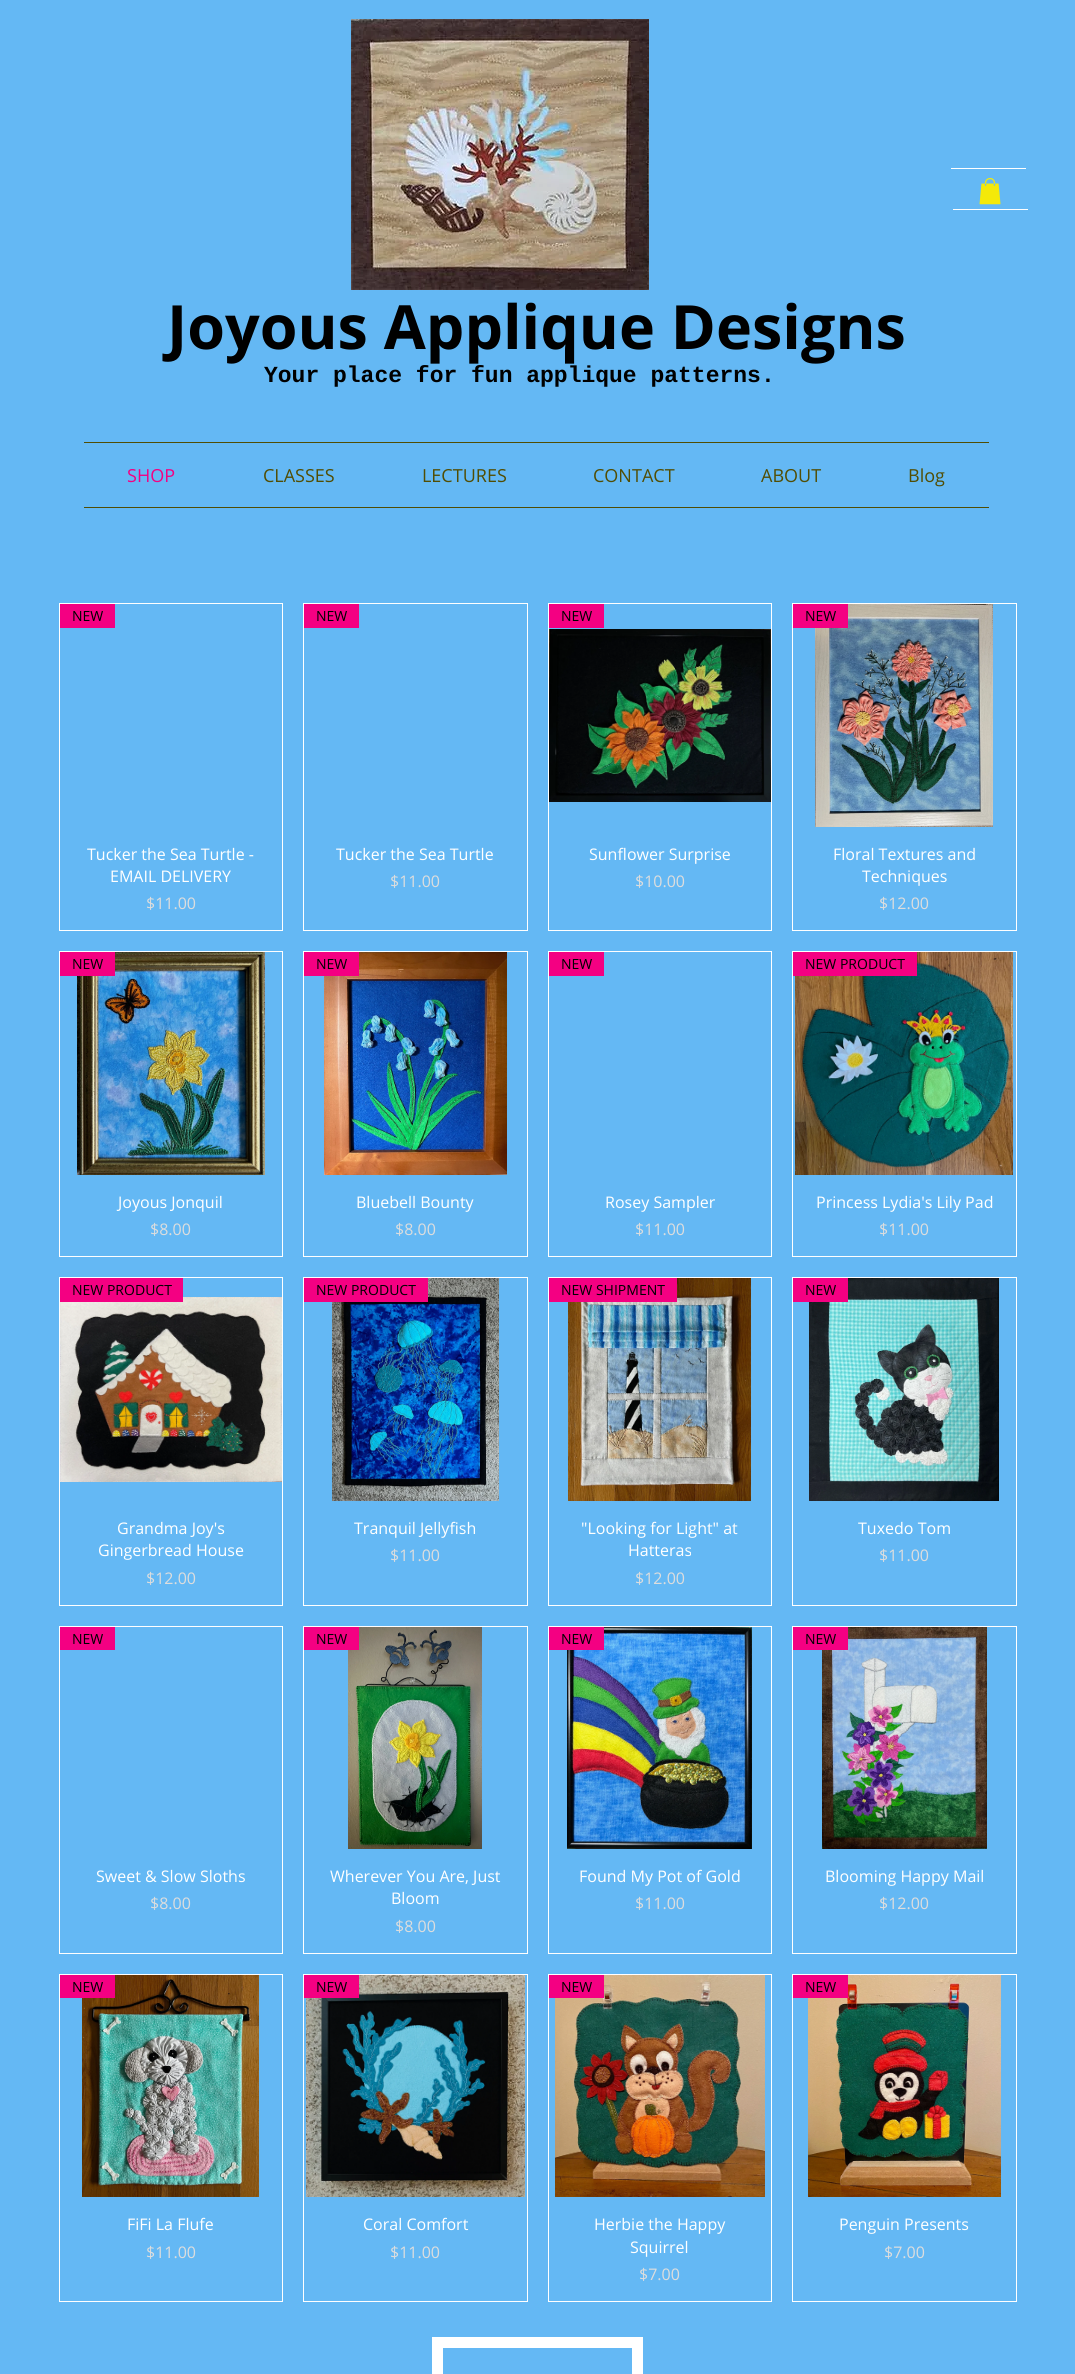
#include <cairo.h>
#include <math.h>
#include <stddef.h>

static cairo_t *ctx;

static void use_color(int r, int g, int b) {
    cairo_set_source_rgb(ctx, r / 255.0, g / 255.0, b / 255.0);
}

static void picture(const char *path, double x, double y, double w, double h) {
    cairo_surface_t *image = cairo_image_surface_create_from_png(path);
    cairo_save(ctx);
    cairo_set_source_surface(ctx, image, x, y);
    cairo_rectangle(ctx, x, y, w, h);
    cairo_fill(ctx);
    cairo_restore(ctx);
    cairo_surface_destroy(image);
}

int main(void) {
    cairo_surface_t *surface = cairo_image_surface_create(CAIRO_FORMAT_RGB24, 1075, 2374);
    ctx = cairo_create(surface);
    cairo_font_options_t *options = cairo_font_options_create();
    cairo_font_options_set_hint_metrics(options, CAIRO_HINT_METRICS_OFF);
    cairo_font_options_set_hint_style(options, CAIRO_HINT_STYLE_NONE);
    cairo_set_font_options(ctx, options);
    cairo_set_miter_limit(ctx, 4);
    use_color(100, 184, 244);
    cairo_paint(ctx);
    picture("img1.png", 351, 19, 298, 271);
    use_color(255, 255, 255);
    cairo_rectangle(ctx, 951, 168, 75, 1);
    cairo_fill(ctx);
    picture("img2.png", 979, 178, 22, 27);
    cairo_rectangle(ctx, 953, 209, 75, 1);
    cairo_fill(ctx);
    cairo_select_font_face(ctx, "Open Sans", CAIRO_FONT_SLANT_NORMAL, CAIRO_FONT_WEIGHT_BOLD);
    cairo_set_font_size(ctx, 61);
    use_color(0, 0, 0);
    cairo_move_to(ctx, 167, 349);
    cairo_show_text(ctx, "Joyous Applique Designs");
    cairo_select_font_face(ctx, "Liberation Mono", CAIRO_FONT_SLANT_NORMAL, CAIRO_FONT_WEIGHT_BOLD);
    cairo_set_font_size(ctx, 23);
    cairo_move_to(ctx, 264, 382);
    cairo_show_text(ctx, "Your place for fun applique patterns.");
    use_color(81, 77, 3);
    cairo_rectangle(ctx, 84, 442, 905, 1);
    cairo_fill(ctx);
    cairo_rectangle(ctx, 84, 507, 905, 1);
    cairo_fill(ctx);
    cairo_select_font_face(ctx, "Open Sans", CAIRO_FONT_SLANT_NORMAL, CAIRO_FONT_WEIGHT_NORMAL);
    cairo_set_font_size(ctx, 18);
    use_color(244, 0, 130);
    cairo_move_to(ctx, 127, 482);
    cairo_show_text(ctx, "SHOP");
    use_color(81, 77, 3);
    cairo_move_to(ctx, 263, 482);
    cairo_show_text(ctx, "CLASSES");
    cairo_move_to(ctx, 422, 482);
    cairo_show_text(ctx, "LECTURES");
    cairo_move_to(ctx, 593, 482);
    cairo_show_text(ctx, "CONTACT");
    cairo_move_to(ctx, 761, 482);
    cairo_show_text(ctx, "ABOUT");
    cairo_move_to(ctx, 908, 482);
    cairo_show_text(ctx, "Blog");
    cairo_rectangle(ctx, 59.5, 603.5, 223, 327);
    use_color(255, 255, 255);
    cairo_set_line_width(ctx, 1);
    cairo_stroke(ctx);
    use_color(244, 0, 130);
    cairo_rectangle(ctx, 60, 604, 55, 24);
    cairo_fill(ctx);
    cairo_set_font_size(ctx, 14);
    use_color(0, 0, 0);
    cairo_move_to(ctx, 72, 621);
    cairo_show_text(ctx, "NEW");
    cairo_set_font_size(ctx, 16);
    use_color(255, 255, 255);
    cairo_move_to(ctx, 87, 860);
    cairo_show_text(ctx, "Tucker the Sea Turtle -");
    cairo_move_to(ctx, 110, 882);
    cairo_show_text(ctx, "EMAIL DELIVERY");
    use_color(221, 221, 221);
    cairo_move_to(ctx, 146, 909);
    cairo_show_text(ctx, "$11.00");
    cairo_rectangle(ctx, 303.5, 603.5, 224, 327);
    use_color(255, 255, 255);
    cairo_stroke(ctx);
    use_color(244, 0, 130);
    cairo_rectangle(ctx, 304, 604, 55, 24);
    cairo_fill(ctx);
    cairo_set_font_size(ctx, 14);
    use_color(0, 0, 0);
    cairo_move_to(ctx, 316, 621);
    cairo_show_text(ctx, "NEW");
    cairo_set_font_size(ctx, 16);
    use_color(255, 255, 255);
    cairo_move_to(ctx, 336, 860);
    cairo_show_text(ctx, "Tucker the Sea Turtle");
    use_color(221, 221, 221);
    cairo_move_to(ctx, 390, 887);
    cairo_show_text(ctx, "$11.00");
    cairo_rectangle(ctx, 548.5, 603.5, 223, 327);
    use_color(255, 255, 255);
    cairo_stroke(ctx);
    use_color(244, 0, 130);
    cairo_rectangle(ctx, 549, 604, 55, 24);
    cairo_fill(ctx);
    cairo_set_font_size(ctx, 14);
    use_color(0, 0, 0);
    cairo_move_to(ctx, 561, 621);
    cairo_show_text(ctx, "NEW");
    picture("img3.png", 549, 629, 222, 173);
    cairo_set_font_size(ctx, 16);
    use_color(255, 255, 255);
    cairo_move_to(ctx, 589, 860);
    cairo_show_text(ctx, "Sunflower Surprise");
    use_color(221, 221, 221);
    cairo_move_to(ctx, 635, 887);
    cairo_show_text(ctx, "$10.00");
    cairo_rectangle(ctx, 792.5, 603.5, 224, 327);
    use_color(255, 255, 255);
    cairo_stroke(ctx);
    picture("img4.png", 815, 604, 178, 223);
    use_color(244, 0, 130);
    cairo_rectangle(ctx, 793, 604, 55, 24);
    cairo_fill(ctx);
    cairo_set_font_size(ctx, 14);
    use_color(0, 0, 0);
    cairo_move_to(ctx, 805, 621);
    cairo_show_text(ctx, "NEW");
    cairo_set_font_size(ctx, 16);
    use_color(255, 255, 255);
    cairo_move_to(ctx, 833, 860);
    cairo_show_text(ctx, "Floral Textures and");
    cairo_move_to(ctx, 862, 882);
    cairo_show_text(ctx, "Techniques");
    use_color(221, 221, 221);
    cairo_move_to(ctx, 879, 909);
    cairo_show_text(ctx, "$12.00");
    cairo_rectangle(ctx, 59.5, 951.5, 223, 305);
    use_color(255, 255, 255);
    cairo_stroke(ctx);
    picture("img5.png", 77, 952, 188, 223);
    use_color(244, 0, 130);
    cairo_rectangle(ctx, 60, 952, 55, 24);
    cairo_fill(ctx);
    cairo_set_font_size(ctx, 14);
    use_color(0, 0, 0);
    cairo_move_to(ctx, 72, 969);
    cairo_show_text(ctx, "NEW");
    cairo_set_font_size(ctx, 16);
    use_color(255, 255, 255);
    cairo_move_to(ctx, 118, 1208);
    cairo_show_text(ctx, "Joyous Jonquil");
    use_color(221, 221, 221);
    cairo_move_to(ctx, 150, 1235);
    cairo_show_text(ctx, "$8.00");
    cairo_rectangle(ctx, 303.5, 951.5, 224, 305);
    use_color(255, 255, 255);
    cairo_stroke(ctx);
    picture("img6.png", 324, 952, 183, 223);
    use_color(244, 0, 130);
    cairo_rectangle(ctx, 304, 952, 55, 24);
    cairo_fill(ctx);
    cairo_set_font_size(ctx, 14);
    use_color(0, 0, 0);
    cairo_move_to(ctx, 316, 969);
    cairo_show_text(ctx, "NEW");
    cairo_set_font_size(ctx, 16);
    use_color(255, 255, 255);
    cairo_move_to(ctx, 356, 1208);
    cairo_show_text(ctx, "Bluebell Bounty");
    use_color(221, 221, 221);
    cairo_move_to(ctx, 395, 1235);
    cairo_show_text(ctx, "$8.00");
    cairo_rectangle(ctx, 548.5, 951.5, 223, 305);
    use_color(255, 255, 255);
    cairo_stroke(ctx);
    use_color(244, 0, 130);
    cairo_rectangle(ctx, 549, 952, 55, 24);
    cairo_fill(ctx);
    cairo_set_font_size(ctx, 14);
    use_color(0, 0, 0);
    cairo_move_to(ctx, 561, 969);
    cairo_show_text(ctx, "NEW");
    cairo_set_font_size(ctx, 16);
    use_color(255, 255, 255);
    cairo_move_to(ctx, 605, 1208);
    cairo_show_text(ctx, "Rosey Sampler");
    use_color(221, 221, 221);
    cairo_move_to(ctx, 635, 1235);
    cairo_show_text(ctx, "$11.00");
    cairo_rectangle(ctx, 792.5, 951.5, 224, 305);
    use_color(255, 255, 255);
    cairo_stroke(ctx);
    picture("img7.png", 795, 952, 218, 223);
    use_color(244, 0, 130);
    cairo_rectangle(ctx, 793, 952, 124, 24);
    cairo_fill(ctx);
    cairo_set_font_size(ctx, 14);
    use_color(0, 0, 0);
    cairo_move_to(ctx, 805, 969);
    cairo_show_text(ctx, "NEW PRODUCT");
    cairo_set_font_size(ctx, 16);
    use_color(255, 255, 255);
    cairo_move_to(ctx, 816, 1208);
    cairo_show_text(ctx, "Princess Lydia's Lily Pad");
    use_color(221, 221, 221);
    cairo_move_to(ctx, 879, 1235);
    cairo_show_text(ctx, "$11.00");
    cairo_rectangle(ctx, 59.5, 1277.5, 223, 328);
    use_color(255, 255, 255);
    cairo_stroke(ctx);
    picture("img8.png", 60, 1297, 222, 185);
    use_color(244, 0, 130);
    cairo_rectangle(ctx, 60, 1278, 123, 24);
    cairo_fill(ctx);
    cairo_set_font_size(ctx, 14);
    use_color(0, 0, 0);
    cairo_move_to(ctx, 72, 1295);
    cairo_show_text(ctx, "NEW PRODUCT");
    cairo_set_font_size(ctx, 16);
    use_color(255, 255, 255);
    cairo_move_to(ctx, 117, 1534);
    cairo_show_text(ctx, "Grandma Joy's");
    cairo_move_to(ctx, 98, 1556);
    cairo_show_text(ctx, "Gingerbread House");
    use_color(221, 221, 221);
    cairo_move_to(ctx, 146, 1584);
    cairo_show_text(ctx, "$12.00");
    cairo_rectangle(ctx, 303.5, 1277.5, 224, 328);
    use_color(255, 255, 255);
    cairo_stroke(ctx);
    picture("img9.png", 332, 1278, 167, 223);
    use_color(244, 0, 130);
    cairo_rectangle(ctx, 304, 1278, 124, 24);
    cairo_fill(ctx);
    cairo_set_font_size(ctx, 14);
    use_color(0, 0, 0);
    cairo_move_to(ctx, 316, 1295);
    cairo_show_text(ctx, "NEW PRODUCT");
    cairo_set_font_size(ctx, 16);
    use_color(255, 255, 255);
    cairo_move_to(ctx, 354, 1534);
    cairo_show_text(ctx, "Tranquil Jellyfish");
    use_color(221, 221, 221);
    cairo_move_to(ctx, 390, 1561);
    cairo_show_text(ctx, "$11.00");
    cairo_rectangle(ctx, 548.5, 1277.5, 223, 328);
    use_color(255, 255, 255);
    cairo_stroke(ctx);
    picture("img10.png", 568, 1278, 183, 223);
    use_color(244, 0, 130);
    cairo_rectangle(ctx, 549, 1278, 128, 24);
    cairo_fill(ctx);
    cairo_set_font_size(ctx, 14);
    use_color(0, 0, 0);
    cairo_move_to(ctx, 561, 1295);
    cairo_show_text(ctx, "NEW SHIPMENT");
    cairo_set_font_size(ctx, 16);
    use_color(255, 255, 255);
    cairo_move_to(ctx, 581, 1534);
    cairo_show_text(ctx, "\"Looking for Light\" at");
    cairo_move_to(ctx, 628, 1556);
    cairo_show_text(ctx, "Hatteras");
    use_color(221, 221, 221);
    cairo_move_to(ctx, 635, 1584);
    cairo_show_text(ctx, "$12.00");
    cairo_rectangle(ctx, 792.5, 1277.5, 224, 328);
    use_color(255, 255, 255);
    cairo_stroke(ctx);
    picture("img11.png", 809, 1278, 190, 223);
    use_color(244, 0, 130);
    cairo_rectangle(ctx, 793, 1278, 55, 24);
    cairo_fill(ctx);
    cairo_set_font_size(ctx, 14);
    use_color(0, 0, 0);
    cairo_move_to(ctx, 805, 1295);
    cairo_show_text(ctx, "NEW");
    cairo_set_font_size(ctx, 16);
    use_color(255, 255, 255);
    cairo_move_to(ctx, 858, 1534);
    cairo_show_text(ctx, "Tuxedo Tom");
    use_color(221, 221, 221);
    cairo_move_to(ctx, 879, 1561);
    cairo_show_text(ctx, "$11.00");
    cairo_rectangle(ctx, 59.5, 1626.5, 223, 327);
    use_color(255, 255, 255);
    cairo_stroke(ctx);
    use_color(244, 0, 130);
    cairo_rectangle(ctx, 60, 1627, 55, 23);
    cairo_fill(ctx);
    cairo_set_font_size(ctx, 14);
    use_color(0, 0, 0);
    cairo_move_to(ctx, 72, 1644);
    cairo_show_text(ctx, "NEW");
    cairo_set_font_size(ctx, 16);
    use_color(255, 255, 255);
    cairo_move_to(ctx, 96, 1882);
    cairo_show_text(ctx, "Sweet & Slow Sloths");
    use_color(221, 221, 221);
    cairo_move_to(ctx, 150, 1909);
    cairo_show_text(ctx, "$8.00");
    cairo_rectangle(ctx, 303.5, 1626.5, 224, 327);
    use_color(255, 255, 255);
    cairo_stroke(ctx);
    picture("img12.png", 348, 1627, 134, 222);
    use_color(244, 0, 130);
    cairo_rectangle(ctx, 304, 1627, 55, 23);
    cairo_fill(ctx);
    cairo_set_font_size(ctx, 14);
    use_color(0, 0, 0);
    cairo_move_to(ctx, 316, 1644);
    cairo_show_text(ctx, "NEW");
    cairo_set_font_size(ctx, 16);
    use_color(255, 255, 255);
    cairo_move_to(ctx, 330, 1882);
    cairo_show_text(ctx, "Wherever You Are, Just");
    cairo_move_to(ctx, 391, 1904);
    cairo_show_text(ctx, "Bloom");
    use_color(221, 221, 221);
    cairo_move_to(ctx, 395, 1932);
    cairo_show_text(ctx, "$8.00");
    cairo_rectangle(ctx, 548.5, 1626.5, 223, 327);
    use_color(255, 255, 255);
    cairo_stroke(ctx);
    picture("img13.png", 567, 1627, 185, 222);
    use_color(244, 0, 130);
    cairo_rectangle(ctx, 549, 1627, 55, 23);
    cairo_fill(ctx);
    cairo_set_font_size(ctx, 14);
    use_color(0, 0, 0);
    cairo_move_to(ctx, 561, 1644);
    cairo_show_text(ctx, "NEW");
    cairo_set_font_size(ctx, 16);
    use_color(255, 255, 255);
    cairo_move_to(ctx, 579, 1882);
    cairo_show_text(ctx, "Found My Pot of Gold");
    use_color(221, 221, 221);
    cairo_move_to(ctx, 635, 1909);
    cairo_show_text(ctx, "$11.00");
    cairo_rectangle(ctx, 792.5, 1626.5, 224, 327);
    use_color(255, 255, 255);
    cairo_stroke(ctx);
    picture("img14.png", 822, 1627, 165, 222);
    use_color(244, 0, 130);
    cairo_rectangle(ctx, 793, 1627, 55, 23);
    cairo_fill(ctx);
    cairo_set_font_size(ctx, 14);
    use_color(0, 0, 0);
    cairo_move_to(ctx, 805, 1644);
    cairo_show_text(ctx, "NEW");
    cairo_set_font_size(ctx, 16);
    use_color(255, 255, 255);
    cairo_move_to(ctx, 825, 1882);
    cairo_show_text(ctx, "Blooming Happy Mail");
    use_color(221, 221, 221);
    cairo_move_to(ctx, 879, 1909);
    cairo_show_text(ctx, "$12.00");
    cairo_rectangle(ctx, 59.5, 1974.5, 223, 327);
    use_color(255, 255, 255);
    cairo_stroke(ctx);
    picture("img15.png", 82, 1975, 177, 222);
    use_color(244, 0, 130);
    cairo_rectangle(ctx, 60, 1975, 55, 23);
    cairo_fill(ctx);
    cairo_set_font_size(ctx, 14);
    use_color(0, 0, 0);
    cairo_move_to(ctx, 72, 1992);
    cairo_show_text(ctx, "NEW");
    cairo_set_font_size(ctx, 16);
    use_color(255, 255, 255);
    cairo_move_to(ctx, 127, 2230);
    cairo_show_text(ctx, "FiFi La Flufe");
    use_color(221, 221, 221);
    cairo_move_to(ctx, 146, 2258);
    cairo_show_text(ctx, "$11.00");
    cairo_rectangle(ctx, 303.5, 1974.5, 224, 327);
    use_color(255, 255, 255);
    cairo_stroke(ctx);
    picture("img16.png", 306, 1975, 219, 222);
    use_color(244, 0, 130);
    cairo_rectangle(ctx, 304, 1975, 55, 23);
    cairo_fill(ctx);
    cairo_set_font_size(ctx, 14);
    use_color(0, 0, 0);
    cairo_move_to(ctx, 316, 1992);
    cairo_show_text(ctx, "NEW");
    cairo_set_font_size(ctx, 16);
    use_color(255, 255, 255);
    cairo_move_to(ctx, 363, 2230);
    cairo_show_text(ctx, "Coral Comfort");
    use_color(221, 221, 221);
    cairo_move_to(ctx, 390, 2258);
    cairo_show_text(ctx, "$11.00");
    cairo_rectangle(ctx, 548.5, 1974.5, 223, 327);
    use_color(255, 255, 255);
    cairo_stroke(ctx);
    picture("img17.png", 555, 1975, 210, 222);
    use_color(244, 0, 130);
    cairo_rectangle(ctx, 549, 1975, 55, 23);
    cairo_fill(ctx);
    cairo_set_font_size(ctx, 14);
    use_color(0, 0, 0);
    cairo_move_to(ctx, 561, 1992);
    cairo_show_text(ctx, "NEW");
    cairo_set_font_size(ctx, 16);
    use_color(255, 255, 255);
    cairo_move_to(ctx, 594, 2230);
    cairo_show_text(ctx, "Herbie the Happy");
    cairo_move_to(ctx, 630, 2253);
    cairo_show_text(ctx, "Squirrel");
    use_color(221, 221, 221);
    cairo_move_to(ctx, 639, 2280);
    cairo_show_text(ctx, "$7.00");
    cairo_rectangle(ctx, 792.5, 1974.5, 224, 327);
    use_color(255, 255, 255);
    cairo_stroke(ctx);
    picture("img18.png", 808, 1975, 193, 222);
    use_color(244, 0, 130);
    cairo_rectangle(ctx, 793, 1975, 55, 23);
    cairo_fill(ctx);
    cairo_set_font_size(ctx, 14);
    use_color(0, 0, 0);
    cairo_move_to(ctx, 805, 1992);
    cairo_show_text(ctx, "NEW");
    cairo_set_font_size(ctx, 16);
    use_color(255, 255, 255);
    cairo_move_to(ctx, 839, 2230);
    cairo_show_text(ctx, "Penguin Presents");
    use_color(221, 221, 221);
    cairo_move_to(ctx, 884, 2258);
    cairo_show_text(ctx, "$7.00");
    cairo_rectangle(ctx, 437.5, 2342.5, 200, 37);
    use_color(255, 255, 255);
    cairo_set_line_width(ctx, 11);
    cairo_stroke(ctx);
    cairo_surface_write_to_png(surface, "result.png");
    cairo_font_options_destroy(options);
    cairo_destroy(ctx);
    cairo_surface_destroy(surface);
    return 0;
}
